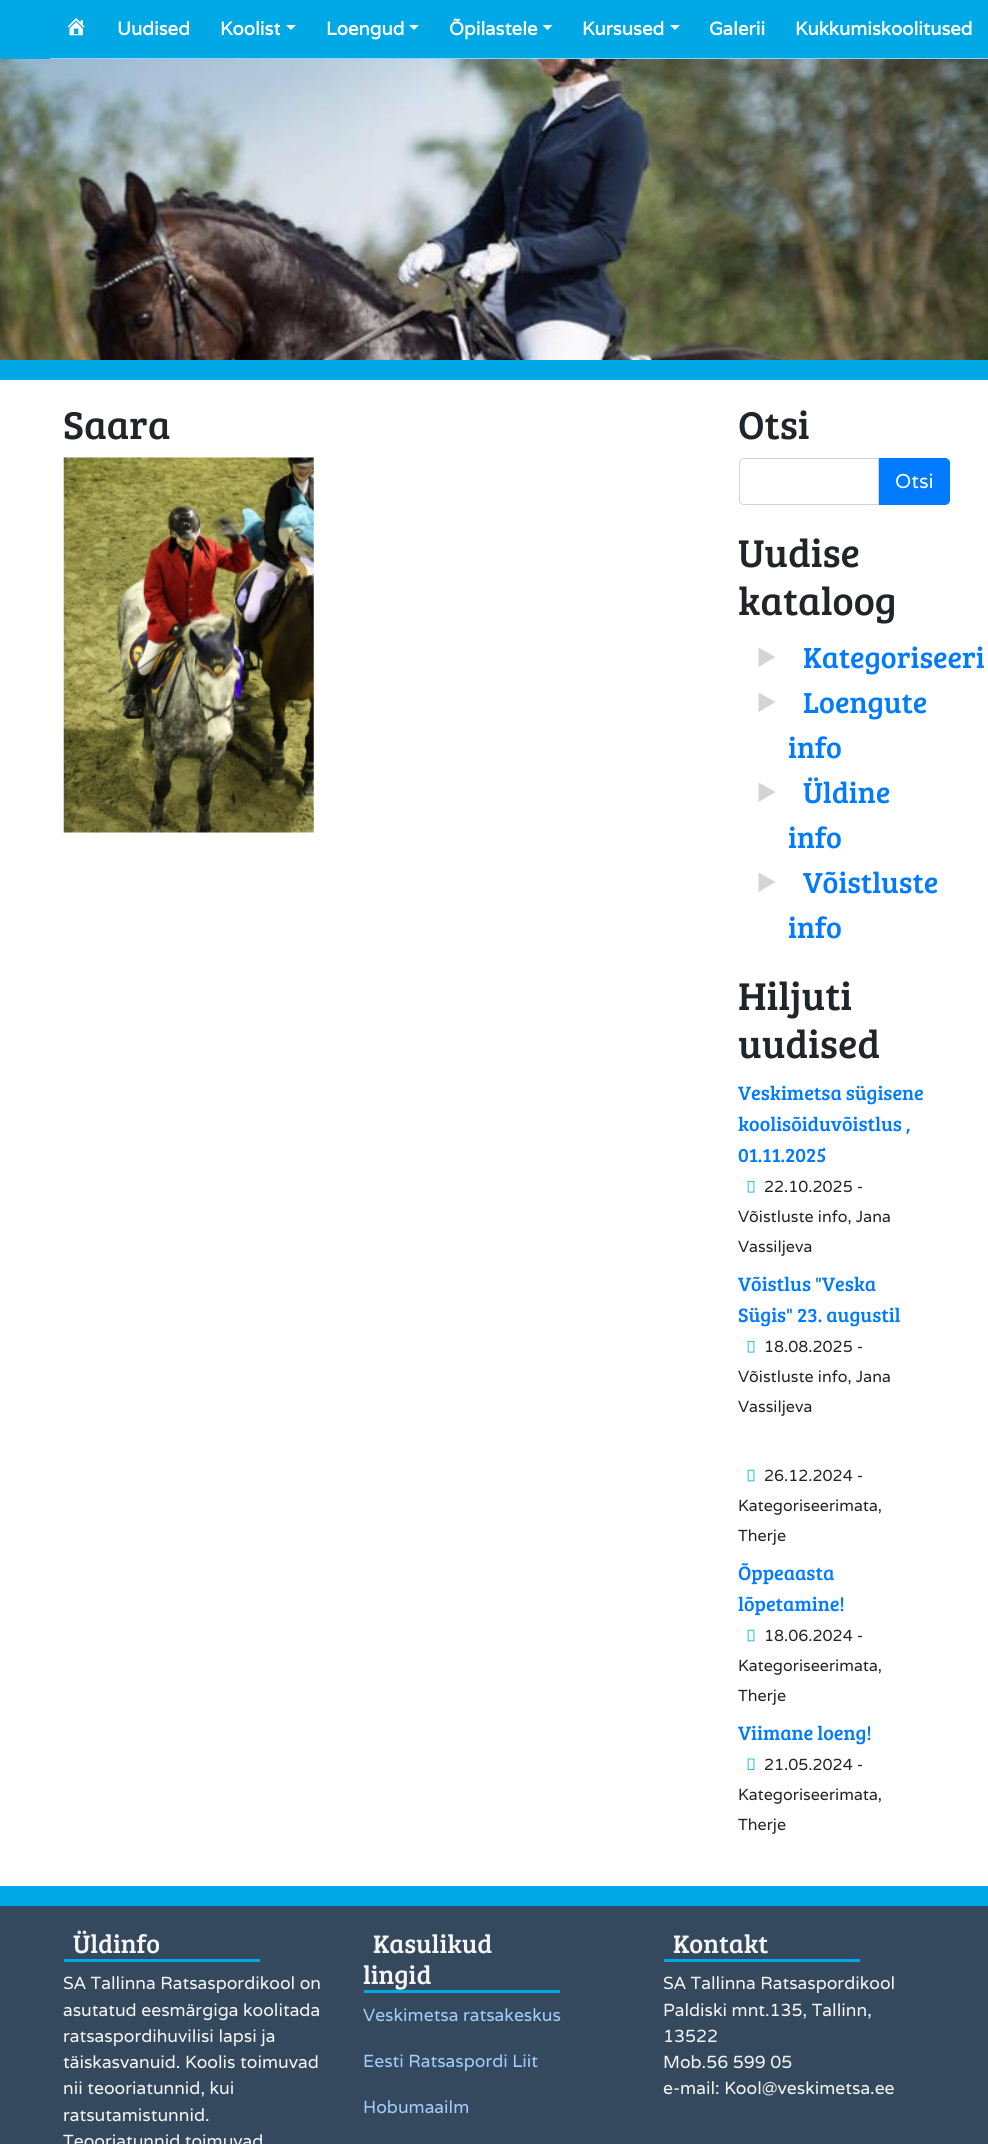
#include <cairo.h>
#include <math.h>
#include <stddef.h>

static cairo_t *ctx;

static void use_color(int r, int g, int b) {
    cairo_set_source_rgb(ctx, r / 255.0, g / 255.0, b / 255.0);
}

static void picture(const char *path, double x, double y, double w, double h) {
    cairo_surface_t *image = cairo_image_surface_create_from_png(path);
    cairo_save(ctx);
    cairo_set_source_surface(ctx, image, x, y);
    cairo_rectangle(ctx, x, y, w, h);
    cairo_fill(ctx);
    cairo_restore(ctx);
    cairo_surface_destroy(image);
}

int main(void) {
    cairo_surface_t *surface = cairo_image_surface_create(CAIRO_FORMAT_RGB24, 988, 2144);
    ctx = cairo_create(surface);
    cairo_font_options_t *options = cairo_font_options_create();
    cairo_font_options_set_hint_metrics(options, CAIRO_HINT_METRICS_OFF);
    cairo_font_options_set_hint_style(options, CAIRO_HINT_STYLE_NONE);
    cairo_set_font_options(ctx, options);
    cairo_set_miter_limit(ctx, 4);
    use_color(255, 255, 255);
    cairo_paint(ctx);
    picture("img2.png", 0, 56, 988, 304);
    use_color(0, 168, 230);
    cairo_new_path(ctx);
    cairo_move_to(ctx, 0, 0);
    cairo_line_to(ctx, 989, 0);
    cairo_line_to(ctx, 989, 56);
    cairo_curve_to(ctx, 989, 57.5, 987.5, 59, 986, 59);
    cairo_line_to(ctx, 3, 59);
    cairo_curve_to(ctx, 1.5, 59, 0, 57.5, 0, 56);
    cairo_close_path(ctx);
    cairo_fill(ctx);
    use_color(140, 216, 244);
    cairo_rectangle(ctx, 50, 58, 518, 1);
    cairo_fill(ctx);
    picture("img1.png", 67, 18, 18, 18);
    cairo_select_font_face(ctx, "Varela", CAIRO_FONT_SLANT_NORMAL, CAIRO_FONT_WEIGHT_BOLD);
    cairo_set_font_size(ctx, 18.5);
    use_color(255, 255, 255);
    cairo_move_to(ctx, 117, 35);
    cairo_show_text(ctx, "Uudised");
    cairo_move_to(ctx, 220, 35);
    cairo_show_text(ctx, "Koolist");
    cairo_new_path(ctx);
    cairo_move_to(ctx, 286, 25);
    cairo_line_to(ctx, 296, 25);
    cairo_line_to(ctx, 291, 30);
    cairo_close_path(ctx);
    cairo_fill(ctx);
    cairo_move_to(ctx, 326, 35);
    cairo_show_text(ctx, "Loengud");
    cairo_new_path(ctx);
    cairo_move_to(ctx, 409, 25);
    cairo_line_to(ctx, 419, 25);
    cairo_line_to(ctx, 414, 30);
    cairo_close_path(ctx);
    cairo_fill(ctx);
    cairo_move_to(ctx, 449, 35);
    cairo_show_text(ctx, "Õpilastele");
    cairo_new_path(ctx);
    cairo_move_to(ctx, 542.5, 25);
    cairo_line_to(ctx, 552.5, 25);
    cairo_line_to(ctx, 547.5, 30);
    cairo_close_path(ctx);
    cairo_fill(ctx);
    cairo_move_to(ctx, 582, 35);
    cairo_show_text(ctx, "Kursused");
    cairo_new_path(ctx);
    cairo_move_to(ctx, 670, 25);
    cairo_line_to(ctx, 680, 25);
    cairo_line_to(ctx, 675, 30);
    cairo_close_path(ctx);
    cairo_fill(ctx);
    use_color(140, 216, 244);
    cairo_rectangle(ctx, 568, 58, 212, 1);
    cairo_fill(ctx);
    use_color(255, 255, 255);
    cairo_move_to(ctx, 709, 35);
    cairo_show_text(ctx, "Galerii");
    cairo_set_source_rgba(ctx, 1, 1, 1, 0.55);
    cairo_rectangle(ctx, 780, 58, 208, 1);
    cairo_fill(ctx);
    use_color(255, 255, 255);
    cairo_move_to(ctx, 795, 35);
    cairo_show_text(ctx, "Kukkumiskoolitused");
    use_color(0, 168, 230);
    cairo_rectangle(ctx, 0, 360, 988, 20);
    cairo_fill(ctx);
    cairo_select_font_face(ctx, "Bree Serif", CAIRO_FONT_SLANT_NORMAL, CAIRO_FONT_WEIGHT_NORMAL);
    cairo_set_font_size(ctx, 40);
    use_color(33, 37, 41);
    cairo_move_to(ctx, 63, 439);
    cairo_show_text(ctx, "Saara");
    picture("img3.png", 63, 457, 251, 376);
    cairo_move_to(ctx, 738, 439);
    cairo_show_text(ctx, "Otsi");
    cairo_new_path(ctx);
    cairo_move_to(ctx, 744, 458.5);
    cairo_line_to(ctx, 878.5, 458.5);
    cairo_line_to(ctx, 878.5, 504.5);
    cairo_line_to(ctx, 744, 504.5);
    cairo_curve_to(ctx, 741.5, 504.5, 739.5, 502.5, 739.5, 500);
    cairo_line_to(ctx, 739.5, 463);
    cairo_curve_to(ctx, 739.5, 460.5, 741.5, 458.5, 744, 458.5);
    cairo_close_path(ctx);
    use_color(206, 212, 218);
    cairo_set_line_width(ctx, 1);
    cairo_stroke(ctx);
    use_color(0, 123, 255);
    cairo_new_path(ctx);
    cairo_move_to(ctx, 879.5, 458.5);
    cairo_line_to(ctx, 945, 458.5);
    cairo_curve_to(ctx, 947.5, 458.5, 949.5, 460.5, 949.5, 463);
    cairo_line_to(ctx, 949.5, 500);
    cairo_curve_to(ctx, 949.5, 502.5, 947.5, 504.5, 945, 504.5);
    cairo_line_to(ctx, 879.5, 504.5);
    cairo_close_path(ctx);
    cairo_fill_preserve(ctx);
    cairo_stroke(ctx);
    cairo_select_font_face(ctx, "Varela", CAIRO_FONT_SLANT_NORMAL, CAIRO_FONT_WEIGHT_NORMAL);
    cairo_set_font_size(ctx, 20);
    use_color(255, 255, 255);
    cairo_move_to(ctx, 895, 488);
    cairo_show_text(ctx, "Otsi");
    cairo_select_font_face(ctx, "Bree Serif", CAIRO_FONT_SLANT_NORMAL, CAIRO_FONT_WEIGHT_NORMAL);
    cairo_set_font_size(ctx, 40);
    use_color(33, 37, 41);
    cairo_move_to(ctx, 738, 567);
    cairo_show_text(ctx, "Uudise");
    cairo_move_to(ctx, 738, 615);
    cairo_show_text(ctx, "kataloog");
    use_color(212, 212, 212);
    cairo_new_path(ctx);
    cairo_move_to(ctx, 758.5, 647.5);
    cairo_line_to(ctx, 775.5, 657);
    cairo_line_to(ctx, 758.5, 667);
    cairo_close_path(ctx);
    cairo_fill(ctx);
    cairo_set_font_size(ctx, 30);
    use_color(0, 123, 255);
    cairo_move_to(ctx, 803, 668);
    cairo_show_text(ctx, "Kategoriseeri");
    use_color(212, 212, 212);
    cairo_new_path(ctx);
    cairo_move_to(ctx, 758.5, 692.5);
    cairo_line_to(ctx, 775.5, 702);
    cairo_line_to(ctx, 758.5, 712);
    cairo_close_path(ctx);
    cairo_fill(ctx);
    use_color(0, 123, 255);
    cairo_move_to(ctx, 803, 713);
    cairo_show_text(ctx, "Loengute");
    cairo_move_to(ctx, 788, 758);
    cairo_show_text(ctx, "info");
    use_color(212, 212, 212);
    cairo_new_path(ctx);
    cairo_move_to(ctx, 758.5, 782.5);
    cairo_line_to(ctx, 775.5, 792);
    cairo_line_to(ctx, 758.5, 802);
    cairo_close_path(ctx);
    cairo_fill(ctx);
    use_color(0, 123, 255);
    cairo_move_to(ctx, 803, 803);
    cairo_show_text(ctx, "Üldine");
    cairo_move_to(ctx, 788, 848);
    cairo_show_text(ctx, "info");
    use_color(212, 212, 212);
    cairo_new_path(ctx);
    cairo_move_to(ctx, 758.5, 872.5);
    cairo_line_to(ctx, 775.5, 882);
    cairo_line_to(ctx, 758.5, 892);
    cairo_close_path(ctx);
    cairo_fill(ctx);
    use_color(0, 123, 255);
    cairo_move_to(ctx, 803, 893);
    cairo_show_text(ctx, "Võistluste");
    cairo_move_to(ctx, 788, 938);
    cairo_show_text(ctx, "info");
    cairo_set_font_size(ctx, 40);
    use_color(33, 37, 41);
    cairo_move_to(ctx, 738, 1010);
    cairo_show_text(ctx, "Hiljuti");
    cairo_move_to(ctx, 738, 1058);
    cairo_show_text(ctx, "uudised");
    cairo_set_font_size(ctx, 20);
    use_color(0, 123, 255);
    cairo_move_to(ctx, 738, 1100);
    cairo_show_text(ctx, "Veskimetsa sügisene");
    cairo_move_to(ctx, 738, 1131);
    cairo_show_text(ctx, "koolisõiduvõistlus ,");
    cairo_move_to(ctx, 738, 1162);
    cairo_show_text(ctx, "01.11.2025");
    picture("img4.png", 747, 1181, 8, 12);
    cairo_select_font_face(ctx, "Varela", CAIRO_FONT_SLANT_NORMAL, CAIRO_FONT_WEIGHT_NORMAL);
    cairo_set_font_size(ctx, 16);
    use_color(33, 37, 41);
    cairo_move_to(ctx, 764, 1192);
    cairo_show_text(ctx, "22.10.2025 -");
    cairo_move_to(ctx, 738, 1222);
    cairo_show_text(ctx, "Võistluste info, Jana");
    cairo_move_to(ctx, 738, 1252);
    cairo_show_text(ctx, "Vassiljeva");
    cairo_select_font_face(ctx, "Bree Serif", CAIRO_FONT_SLANT_NORMAL, CAIRO_FONT_WEIGHT_NORMAL);
    cairo_set_font_size(ctx, 20);
    use_color(0, 123, 255);
    cairo_move_to(ctx, 738, 1291);
    cairo_show_text(ctx, "Võistlus \"Veska");
    cairo_move_to(ctx, 738, 1322);
    cairo_show_text(ctx, "Sügis\" 23. augustil");
    picture("img4.png", 747, 1341, 8, 12);
    cairo_select_font_face(ctx, "Varela", CAIRO_FONT_SLANT_NORMAL, CAIRO_FONT_WEIGHT_NORMAL);
    cairo_set_font_size(ctx, 16);
    use_color(33, 37, 41);
    cairo_move_to(ctx, 764, 1352);
    cairo_show_text(ctx, "18.08.2025 -");
    cairo_move_to(ctx, 738, 1382);
    cairo_show_text(ctx, "Võistluste info, Jana");
    cairo_move_to(ctx, 738, 1412);
    cairo_show_text(ctx, "Vassiljeva");
    picture("img5.png", 747, 1469, 8, 13);
    cairo_move_to(ctx, 764, 1481);
    cairo_show_text(ctx, "26.12.2024 -");
    cairo_move_to(ctx, 738, 1511);
    cairo_show_text(ctx, "Kategoriseerimata,");
    cairo_move_to(ctx, 738, 1541);
    cairo_show_text(ctx, "Therje");
    cairo_select_font_face(ctx, "Bree Serif", CAIRO_FONT_SLANT_NORMAL, CAIRO_FONT_WEIGHT_NORMAL);
    cairo_set_font_size(ctx, 20);
    use_color(0, 123, 255);
    cairo_move_to(ctx, 738, 1580);
    cairo_show_text(ctx, "Õppeaasta");
    cairo_move_to(ctx, 738, 1611);
    cairo_show_text(ctx, "lõpetamine!");
    picture("img5.png", 747, 1629, 8, 13);
    cairo_select_font_face(ctx, "Varela", CAIRO_FONT_SLANT_NORMAL, CAIRO_FONT_WEIGHT_NORMAL);
    cairo_set_font_size(ctx, 16);
    use_color(33, 37, 41);
    cairo_move_to(ctx, 764, 1641);
    cairo_show_text(ctx, "18.06.2024 -");
    cairo_move_to(ctx, 738, 1671);
    cairo_show_text(ctx, "Kategoriseerimata,");
    cairo_move_to(ctx, 738, 1701);
    cairo_show_text(ctx, "Therje");
    cairo_select_font_face(ctx, "Bree Serif", CAIRO_FONT_SLANT_NORMAL, CAIRO_FONT_WEIGHT_NORMAL);
    cairo_set_font_size(ctx, 20);
    use_color(0, 123, 255);
    cairo_move_to(ctx, 738, 1740);
    cairo_show_text(ctx, "Viimane loeng!");
    picture("img6.png", 747, 1758, 8, 12);
    cairo_select_font_face(ctx, "Varela", CAIRO_FONT_SLANT_NORMAL, CAIRO_FONT_WEIGHT_NORMAL);
    cairo_set_font_size(ctx, 16);
    use_color(33, 37, 41);
    cairo_move_to(ctx, 764, 1770);
    cairo_show_text(ctx, "21.05.2024 -");
    cairo_move_to(ctx, 738, 1800);
    cairo_show_text(ctx, "Kategoriseerimata,");
    cairo_move_to(ctx, 738, 1830);
    cairo_show_text(ctx, "Therje");
    use_color(0, 168, 230);
    cairo_rectangle(ctx, 0, 1886, 988, 20);
    cairo_fill(ctx);
    use_color(52, 73, 94);
    cairo_rectangle(ctx, 0, 1906, 988, 238);
    cairo_fill(ctx);
    use_color(0, 168, 230);
    cairo_rectangle(ctx, 64, 1959, 196, 3);
    cairo_fill(ctx);
    cairo_select_font_face(ctx, "Bree Serif", CAIRO_FONT_SLANT_NORMAL, CAIRO_FONT_WEIGHT_NORMAL);
    cairo_set_font_size(ctx, 26.25);
    use_color(245, 245, 245);
    cairo_move_to(ctx, 73, 1953);
    cairo_show_text(ctx, "Üldinfo");
    cairo_select_font_face(ctx, "Varela", CAIRO_FONT_SLANT_NORMAL, CAIRO_FONT_WEIGHT_NORMAL);
    cairo_set_font_size(ctx, 17.5);
    cairo_move_to(ctx, 63, 1989);
    cairo_show_text(ctx, "SA Tallinna Ratsaspordikool on");
    cairo_move_to(ctx, 63, 2016);
    cairo_show_text(ctx, "asutatud eesmärgiga koolitada");
    cairo_move_to(ctx, 63, 2042);
    cairo_show_text(ctx, "ratsaspordihuvilisi lapsi ja");
    cairo_move_to(ctx, 63, 2068);
    cairo_show_text(ctx, "täiskasvanuid. Koolis toimuvad");
    cairo_move_to(ctx, 63, 2094);
    cairo_show_text(ctx, "nii teooriatunnid, kui");
    cairo_move_to(ctx, 63, 2121);
    cairo_show_text(ctx, "ratsutamistunnid.");
    cairo_move_to(ctx, 63, 2147);
    cairo_show_text(ctx, "Teooriatunnid toimuvad");
    use_color(0, 168, 230);
    cairo_rectangle(ctx, 364, 1990, 196, 3);
    cairo_fill(ctx);
    cairo_select_font_face(ctx, "Bree Serif", CAIRO_FONT_SLANT_NORMAL, CAIRO_FONT_WEIGHT_NORMAL);
    cairo_set_font_size(ctx, 26.25);
    use_color(245, 245, 245);
    cairo_move_to(ctx, 373, 1953);
    cairo_show_text(ctx, "Kasulikud");
    cairo_move_to(ctx, 363, 1984);
    cairo_show_text(ctx, "lingid");
    cairo_select_font_face(ctx, "Varela", CAIRO_FONT_SLANT_NORMAL, CAIRO_FONT_WEIGHT_NORMAL);
    cairo_set_font_size(ctx, 17.5);
    use_color(161, 206, 255);
    cairo_move_to(ctx, 363, 2021);
    cairo_show_text(ctx, "Veskimetsa ratsakeskus");
    cairo_move_to(ctx, 363, 2067);
    cairo_show_text(ctx, "Eesti Ratsaspordi Liit");
    cairo_move_to(ctx, 363, 2113);
    cairo_show_text(ctx, "Hobumaailm");
    use_color(0, 168, 230);
    cairo_rectangle(ctx, 664, 1959, 196, 3);
    cairo_fill(ctx);
    cairo_select_font_face(ctx, "Bree Serif", CAIRO_FONT_SLANT_NORMAL, CAIRO_FONT_WEIGHT_NORMAL);
    cairo_set_font_size(ctx, 26.25);
    use_color(245, 245, 245);
    cairo_move_to(ctx, 673, 1953);
    cairo_show_text(ctx, "Kontakt");
    cairo_select_font_face(ctx, "Varela", CAIRO_FONT_SLANT_NORMAL, CAIRO_FONT_WEIGHT_NORMAL);
    cairo_set_font_size(ctx, 17.5);
    cairo_move_to(ctx, 663, 1989);
    cairo_show_text(ctx, "SA Tallinna Ratsaspordikool");
    cairo_move_to(ctx, 663, 2016);
    cairo_show_text(ctx, "Paldiski mnt.135, Tallinn,");
    cairo_move_to(ctx, 663, 2042);
    cairo_show_text(ctx, "13522");
    cairo_move_to(ctx, 663, 2068);
    cairo_show_text(ctx, "Mob.56 599 05");
    cairo_move_to(ctx, 663, 2094);
    cairo_show_text(ctx, "e-mail: Kool@veskimetsa.ee");
    cairo_surface_write_to_png(surface, "result.png");
    cairo_font_options_destroy(options);
    cairo_destroy(ctx);
    cairo_surface_destroy(surface);
    return 0;
}
